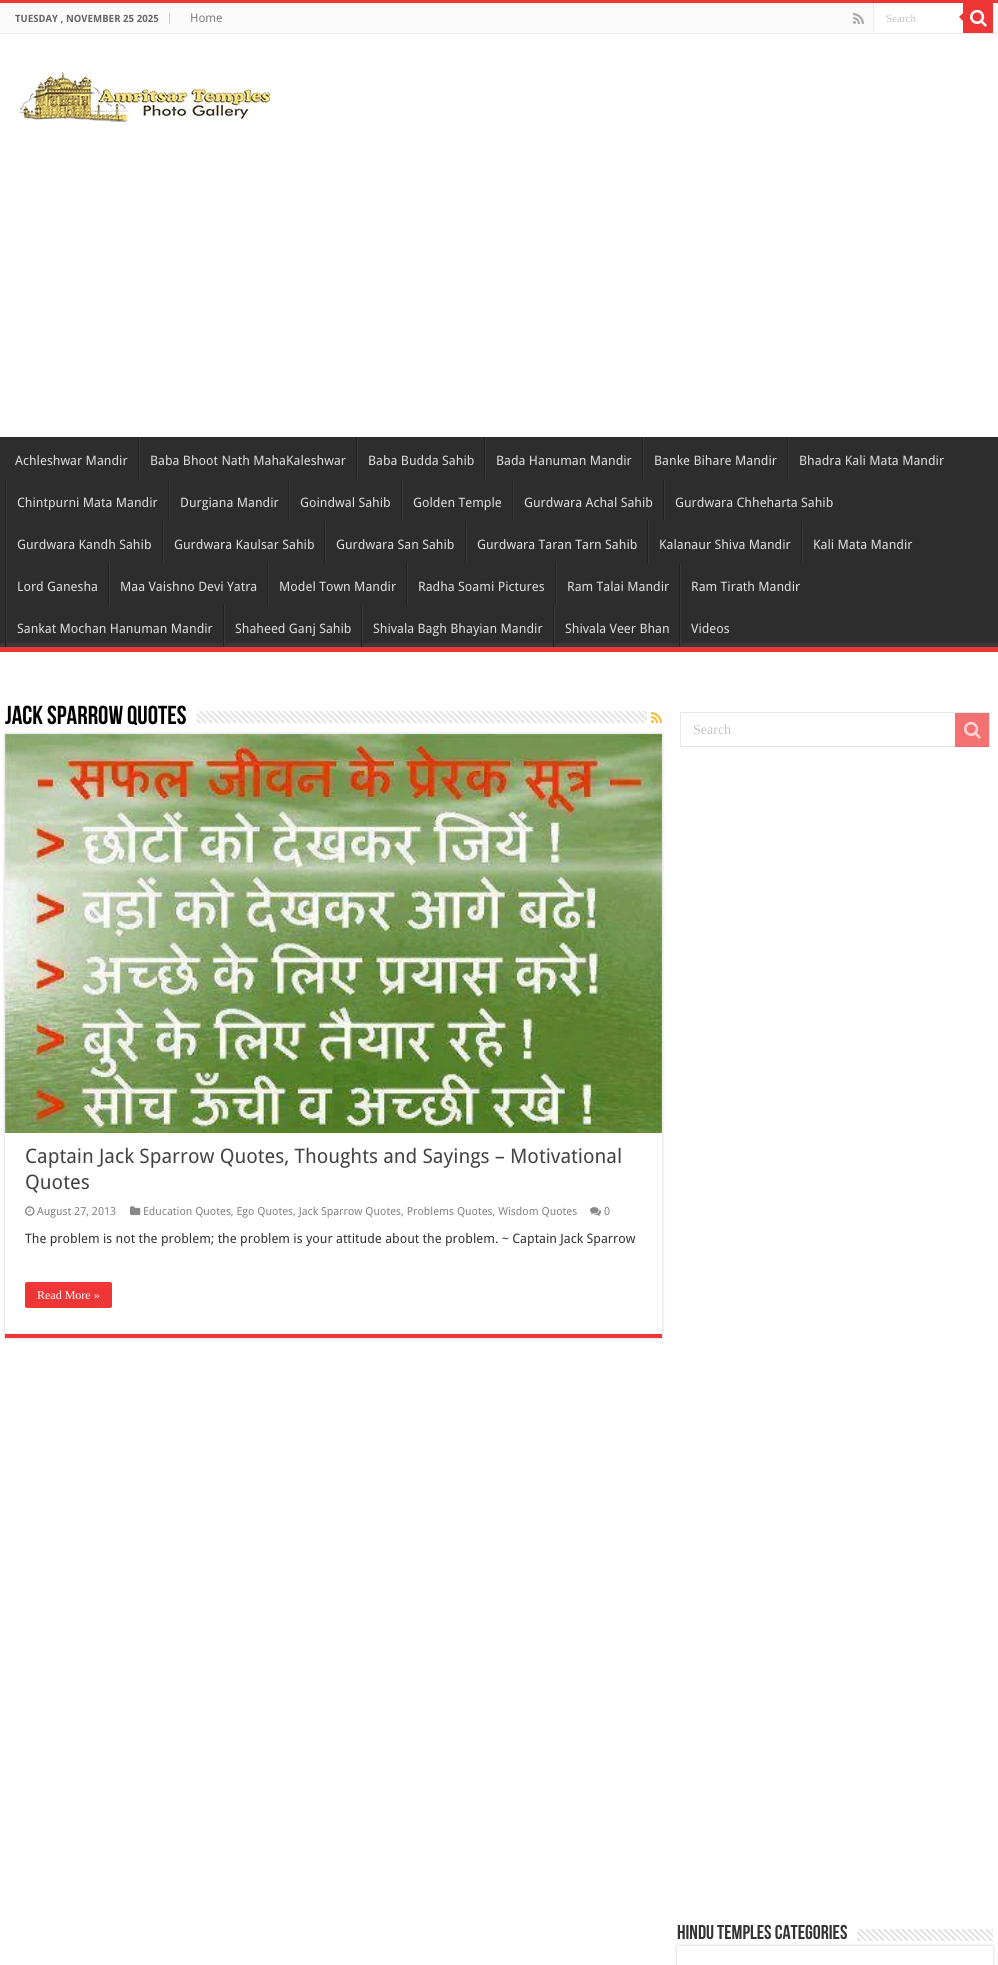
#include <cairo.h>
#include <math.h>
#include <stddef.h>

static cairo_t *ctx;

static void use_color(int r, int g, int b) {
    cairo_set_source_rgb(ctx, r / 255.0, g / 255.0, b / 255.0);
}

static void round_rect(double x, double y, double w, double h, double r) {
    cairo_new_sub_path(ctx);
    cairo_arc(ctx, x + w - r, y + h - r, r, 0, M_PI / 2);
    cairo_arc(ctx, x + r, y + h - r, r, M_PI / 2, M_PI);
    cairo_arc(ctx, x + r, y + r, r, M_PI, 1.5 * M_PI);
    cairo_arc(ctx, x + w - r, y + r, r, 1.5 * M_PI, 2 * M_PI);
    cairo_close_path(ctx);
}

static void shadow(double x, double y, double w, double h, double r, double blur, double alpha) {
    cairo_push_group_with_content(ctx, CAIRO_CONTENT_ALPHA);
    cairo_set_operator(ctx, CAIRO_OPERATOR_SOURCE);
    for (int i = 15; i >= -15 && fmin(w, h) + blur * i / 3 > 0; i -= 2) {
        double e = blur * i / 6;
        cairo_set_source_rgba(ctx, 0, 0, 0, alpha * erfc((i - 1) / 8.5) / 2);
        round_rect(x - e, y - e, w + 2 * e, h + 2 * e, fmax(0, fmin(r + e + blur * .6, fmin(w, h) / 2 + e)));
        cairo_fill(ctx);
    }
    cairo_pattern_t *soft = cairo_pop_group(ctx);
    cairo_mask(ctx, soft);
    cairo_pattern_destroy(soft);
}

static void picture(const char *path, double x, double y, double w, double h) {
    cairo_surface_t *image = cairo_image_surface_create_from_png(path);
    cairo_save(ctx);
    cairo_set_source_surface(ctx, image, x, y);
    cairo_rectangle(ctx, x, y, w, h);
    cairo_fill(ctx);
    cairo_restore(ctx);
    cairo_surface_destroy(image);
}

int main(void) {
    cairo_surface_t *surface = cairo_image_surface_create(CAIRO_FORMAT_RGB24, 998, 1965);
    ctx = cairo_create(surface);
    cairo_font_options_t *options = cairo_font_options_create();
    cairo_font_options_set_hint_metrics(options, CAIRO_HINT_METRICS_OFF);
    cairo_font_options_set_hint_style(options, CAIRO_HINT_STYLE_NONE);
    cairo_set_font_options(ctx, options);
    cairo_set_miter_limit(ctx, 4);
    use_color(255, 255, 255);
    cairo_paint(ctx);
    use_color(239, 54, 54);
    cairo_rectangle(ctx, 0, 0, 998, 3);
    cairo_fill(ctx);
    use_color(251, 251, 251);
    cairo_rectangle(ctx, 0, 3, 998, 30);
    cairo_fill(ctx);
    use_color(236, 236, 236);
    cairo_rectangle(ctx, 0, 33, 998, 1);
    cairo_fill(ctx);
    use_color(204, 204, 204);
    cairo_rectangle(ctx, 169, 13, 1, 11);
    cairo_fill(ctx);
    cairo_select_font_face(ctx, "Droid Sans", CAIRO_FONT_SLANT_NORMAL, CAIRO_FONT_WEIGHT_BOLD);
    cairo_set_font_size(ctx, 10);
    use_color(102, 102, 102);
    cairo_move_to(ctx, 15, 22);
    cairo_show_text(ctx, "TUESDAY , NOVEMBER 25 2025");
    cairo_select_font_face(ctx, "Droid Sans", CAIRO_FONT_SLANT_NORMAL, CAIRO_FONT_WEIGHT_NORMAL);
    cairo_set_font_size(ctx, 12);
    use_color(131, 131, 131);
    cairo_move_to(ctx, 190, 22);
    cairo_show_text(ctx, "Home");
    picture("img1.png", 853, 13, 11, 11);
    use_color(255, 255, 255);
    cairo_rectangle(ctx, 874, 3, 89, 29);
    cairo_fill(ctx);
    use_color(236, 236, 236);
    cairo_rectangle(ctx, 873, 3, 1, 29);
    cairo_fill(ctx);
    cairo_select_font_face(ctx, "Liberation Serif", CAIRO_FONT_SLANT_NORMAL, CAIRO_FONT_WEIGHT_NORMAL);
    cairo_set_font_size(ctx, 11);
    use_color(197, 197, 197);
    cairo_move_to(ctx, 886, 22);
    cairo_show_text(ctx, "Search");
    use_color(239, 54, 54);
    cairo_rectangle(ctx, 963, 3, 30, 30);
    cairo_fill(ctx);
    picture("img2.png", 970, 9, 17, 18);
    cairo_new_path(ctx);
    cairo_move_to(ctx, 963, 13);
    cairo_line_to(ctx, 963, 21);
    cairo_line_to(ctx, 959, 17);
    cairo_close_path(ctx);
    cairo_fill(ctx);
    picture("img3.png", 20, 72, 250, 50);
    use_color(45, 45, 45);
    cairo_rectangle(ctx, 0, 437, 998, 206);
    cairo_fill(ctx);
    cairo_save(ctx);
    cairo_rectangle(ctx, 0, 437, 998, 210);
    cairo_clip(ctx);
    use_color(57, 57, 57);
    cairo_set_fill_rule(ctx, CAIRO_FILL_RULE_EVEN_ODD);
    cairo_new_path(ctx);
    cairo_move_to(ctx, -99, 338);
    cairo_line_to(ctx, 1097, 338);
    cairo_line_to(ctx, 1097, 746);
    cairo_line_to(ctx, -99, 746);
    cairo_close_path(ctx);
    cairo_move_to(ctx, -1, 431);
    cairo_line_to(ctx, 997, 431);
    cairo_curve_to(ctx, 998, 431, 998, 431, 998, 432);
    cairo_line_to(ctx, 998, 642);
    cairo_curve_to(ctx, 998, 643, 998, 643, 997, 643);
    cairo_line_to(ctx, -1, 643);
    cairo_curve_to(ctx, -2, 643, -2, 643, -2, 642);
    cairo_line_to(ctx, -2, 432);
    cairo_curve_to(ctx, -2, 431, -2, 431, -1, 431);
    cairo_close_path(ctx);
    cairo_fill(ctx);
    cairo_restore(ctx);
    use_color(239, 54, 54);
    cairo_rectangle(ctx, 0, 647, 998, 5);
    cairo_fill(ctx);
    cairo_select_font_face(ctx, "Droid Sans", CAIRO_FONT_SLANT_NORMAL, CAIRO_FONT_WEIGHT_NORMAL);
    cairo_set_font_size(ctx, 13);
    use_color(221, 221, 221);
    cairo_move_to(ctx, 15, 465);
    cairo_show_text(ctx, "Achleshwar Mandir");
    use_color(34, 34, 34);
    cairo_rectangle(ctx, 138, 437, 1, 42);
    cairo_fill(ctx);
    use_color(56, 56, 56);
    cairo_rectangle(ctx, 139, 437, 1, 42);
    cairo_fill(ctx);
    use_color(221, 221, 221);
    cairo_move_to(ctx, 150, 465);
    cairo_show_text(ctx, "Baba Bhoot Nath MahaKaleshwar");
    use_color(34, 34, 34);
    cairo_rectangle(ctx, 356, 437, 1, 42);
    cairo_fill(ctx);
    use_color(56, 56, 56);
    cairo_rectangle(ctx, 357, 437, 1, 42);
    cairo_fill(ctx);
    use_color(221, 221, 221);
    cairo_move_to(ctx, 368, 465);
    cairo_show_text(ctx, "Baba Budda Sahib");
    use_color(34, 34, 34);
    cairo_rectangle(ctx, 484, 437, 1, 42);
    cairo_fill(ctx);
    use_color(56, 56, 56);
    cairo_rectangle(ctx, 485, 437, 1, 42);
    cairo_fill(ctx);
    use_color(221, 221, 221);
    cairo_move_to(ctx, 496, 465);
    cairo_show_text(ctx, "Bada Hanuman Mandir");
    use_color(34, 34, 34);
    cairo_rectangle(ctx, 642, 437, 1, 42);
    cairo_fill(ctx);
    use_color(56, 56, 56);
    cairo_rectangle(ctx, 643, 437, 1, 42);
    cairo_fill(ctx);
    use_color(221, 221, 221);
    cairo_move_to(ctx, 654, 465);
    cairo_show_text(ctx, "Banke Bihare Mandir");
    use_color(34, 34, 34);
    cairo_rectangle(ctx, 787, 437, 1, 42);
    cairo_fill(ctx);
    use_color(56, 56, 56);
    cairo_rectangle(ctx, 788, 437, 1, 42);
    cairo_fill(ctx);
    use_color(221, 221, 221);
    cairo_move_to(ctx, 799, 465);
    cairo_show_text(ctx, "Bhadra Kali Mata Mandir");
    use_color(34, 34, 34);
    cairo_rectangle(ctx, 5, 479, 1, 168);
    cairo_fill(ctx);
    use_color(56, 56, 56);
    cairo_rectangle(ctx, 6, 479, 1, 168);
    cairo_fill(ctx);
    use_color(221, 221, 221);
    cairo_move_to(ctx, 17, 507);
    cairo_show_text(ctx, "Chintpurni Mata Mandir");
    use_color(34, 34, 34);
    cairo_rectangle(ctx, 168, 479, 1, 42);
    cairo_fill(ctx);
    use_color(56, 56, 56);
    cairo_rectangle(ctx, 169, 479, 1, 42);
    cairo_fill(ctx);
    use_color(221, 221, 221);
    cairo_move_to(ctx, 180, 507);
    cairo_show_text(ctx, "Durgiana Mandir");
    use_color(34, 34, 34);
    cairo_rectangle(ctx, 288, 479, 1, 42);
    cairo_fill(ctx);
    use_color(56, 56, 56);
    cairo_rectangle(ctx, 289, 479, 1, 42);
    cairo_fill(ctx);
    use_color(221, 221, 221);
    cairo_move_to(ctx, 300, 507);
    cairo_show_text(ctx, "Goindwal Sahib");
    use_color(34, 34, 34);
    cairo_rectangle(ctx, 401, 479, 1, 42);
    cairo_fill(ctx);
    use_color(56, 56, 56);
    cairo_rectangle(ctx, 402, 479, 1, 42);
    cairo_fill(ctx);
    use_color(221, 221, 221);
    cairo_move_to(ctx, 413, 507);
    cairo_show_text(ctx, "Golden Temple");
    use_color(34, 34, 34);
    cairo_rectangle(ctx, 512, 479, 1, 42);
    cairo_fill(ctx);
    use_color(56, 56, 56);
    cairo_rectangle(ctx, 513, 479, 1, 42);
    cairo_fill(ctx);
    use_color(221, 221, 221);
    cairo_move_to(ctx, 524, 507);
    cairo_show_text(ctx, "Gurdwara Achal Sahib");
    use_color(34, 34, 34);
    cairo_rectangle(ctx, 663, 479, 1, 42);
    cairo_fill(ctx);
    use_color(56, 56, 56);
    cairo_rectangle(ctx, 664, 479, 1, 42);
    cairo_fill(ctx);
    use_color(221, 221, 221);
    cairo_move_to(ctx, 675, 507);
    cairo_show_text(ctx, "Gurdwara Chheharta Sahib");
    cairo_move_to(ctx, 17, 549);
    cairo_show_text(ctx, "Gurdwara Kandh Sahib");
    use_color(34, 34, 34);
    cairo_rectangle(ctx, 162, 521, 1, 42);
    cairo_fill(ctx);
    use_color(56, 56, 56);
    cairo_rectangle(ctx, 163, 521, 1, 42);
    cairo_fill(ctx);
    use_color(221, 221, 221);
    cairo_move_to(ctx, 174, 549);
    cairo_show_text(ctx, "Gurdwara Kaulsar Sahib");
    use_color(34, 34, 34);
    cairo_rectangle(ctx, 324, 521, 1, 42);
    cairo_fill(ctx);
    use_color(56, 56, 56);
    cairo_rectangle(ctx, 325, 521, 1, 42);
    cairo_fill(ctx);
    use_color(221, 221, 221);
    cairo_move_to(ctx, 336, 549);
    cairo_show_text(ctx, "Gurdwara San Sahib");
    use_color(34, 34, 34);
    cairo_rectangle(ctx, 465, 521, 1, 42);
    cairo_fill(ctx);
    use_color(56, 56, 56);
    cairo_rectangle(ctx, 466, 521, 1, 42);
    cairo_fill(ctx);
    use_color(221, 221, 221);
    cairo_move_to(ctx, 477, 549);
    cairo_show_text(ctx, "Gurdwara Taran Tarn Sahib");
    use_color(34, 34, 34);
    cairo_rectangle(ctx, 647, 521, 1, 42);
    cairo_fill(ctx);
    use_color(56, 56, 56);
    cairo_rectangle(ctx, 648, 521, 1, 42);
    cairo_fill(ctx);
    use_color(221, 221, 221);
    cairo_move_to(ctx, 659, 549);
    cairo_show_text(ctx, "Kalanaur Shiva Mandir");
    use_color(34, 34, 34);
    cairo_rectangle(ctx, 801, 521, 1, 42);
    cairo_fill(ctx);
    use_color(56, 56, 56);
    cairo_rectangle(ctx, 802, 521, 1, 42);
    cairo_fill(ctx);
    use_color(221, 221, 221);
    cairo_move_to(ctx, 813, 549);
    cairo_show_text(ctx, "Kali Mata Mandir");
    cairo_move_to(ctx, 17, 591);
    cairo_show_text(ctx, "Lord Ganesha");
    use_color(34, 34, 34);
    cairo_rectangle(ctx, 108, 563, 1, 42);
    cairo_fill(ctx);
    use_color(56, 56, 56);
    cairo_rectangle(ctx, 109, 563, 1, 42);
    cairo_fill(ctx);
    use_color(221, 221, 221);
    cairo_move_to(ctx, 120, 591);
    cairo_show_text(ctx, "Maa Vaishno Devi Yatra");
    use_color(34, 34, 34);
    cairo_rectangle(ctx, 267, 563, 1, 42);
    cairo_fill(ctx);
    use_color(56, 56, 56);
    cairo_rectangle(ctx, 268, 563, 1, 42);
    cairo_fill(ctx);
    use_color(221, 221, 221);
    cairo_move_to(ctx, 279, 591);
    cairo_show_text(ctx, "Model Town Mandir");
    use_color(34, 34, 34);
    cairo_rectangle(ctx, 406, 563, 1, 42);
    cairo_fill(ctx);
    use_color(56, 56, 56);
    cairo_rectangle(ctx, 407, 563, 1, 42);
    cairo_fill(ctx);
    use_color(221, 221, 221);
    cairo_move_to(ctx, 418, 591);
    cairo_show_text(ctx, "Radha Soami Pictures");
    use_color(34, 34, 34);
    cairo_rectangle(ctx, 555, 563, 1, 42);
    cairo_fill(ctx);
    use_color(56, 56, 56);
    cairo_rectangle(ctx, 556, 563, 1, 42);
    cairo_fill(ctx);
    use_color(221, 221, 221);
    cairo_move_to(ctx, 567, 591);
    cairo_show_text(ctx, "Ram Talai Mandir");
    use_color(34, 34, 34);
    cairo_rectangle(ctx, 679, 563, 1, 84);
    cairo_fill(ctx);
    use_color(56, 56, 56);
    cairo_rectangle(ctx, 680, 563, 1, 84);
    cairo_fill(ctx);
    use_color(221, 221, 221);
    cairo_move_to(ctx, 691, 591);
    cairo_show_text(ctx, "Ram Tirath Mandir");
    cairo_move_to(ctx, 17, 633);
    cairo_show_text(ctx, "Sankat Mochan Hanuman Mandir");
    use_color(34, 34, 34);
    cairo_rectangle(ctx, 223, 605, 1, 42);
    cairo_fill(ctx);
    use_color(56, 56, 56);
    cairo_rectangle(ctx, 224, 605, 1, 42);
    cairo_fill(ctx);
    use_color(221, 221, 221);
    cairo_move_to(ctx, 235, 633);
    cairo_show_text(ctx, "Shaheed Ganj Sahib");
    use_color(34, 34, 34);
    cairo_rectangle(ctx, 361, 605, 1, 42);
    cairo_fill(ctx);
    use_color(56, 56, 56);
    cairo_rectangle(ctx, 362, 605, 1, 42);
    cairo_fill(ctx);
    use_color(221, 221, 221);
    cairo_move_to(ctx, 373, 633);
    cairo_show_text(ctx, "Shivala Bagh Bhayian Mandir");
    use_color(34, 34, 34);
    cairo_rectangle(ctx, 553, 605, 1, 42);
    cairo_fill(ctx);
    use_color(56, 56, 56);
    cairo_rectangle(ctx, 554, 605, 1, 42);
    cairo_fill(ctx);
    use_color(221, 221, 221);
    cairo_move_to(ctx, 565, 633);
    cairo_show_text(ctx, "Shivala Veer Bhan");
    cairo_move_to(ctx, 691, 633);
    cairo_show_text(ctx, "Videos");
    cairo_select_font_face(ctx, "Bebas Neue", CAIRO_FONT_SLANT_NORMAL, CAIRO_FONT_WEIGHT_BOLD);
    cairo_set_font_size(ctx, 26);
    use_color(0, 0, 0);
    cairo_move_to(ctx, 5, 724);
    cairo_show_text(ctx, "Jack Sparrow Quotes");
    picture("img4.png", 197, 711, 450, 12);
    picture("img5.png", 651, 712, 11, 11);
    cairo_save(ctx);
    cairo_set_fill_rule(ctx, CAIRO_FILL_RULE_EVEN_ODD);
    cairo_new_path(ctx);
    cairo_move_to(ctx, 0, 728);
    cairo_line_to(ctx, 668, 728);
    cairo_line_to(ctx, 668, 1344);
    cairo_line_to(ctx, 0, 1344);
    cairo_close_path(ctx);
    cairo_move_to(ctx, 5, 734);
    cairo_line_to(ctx, 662, 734);
    cairo_line_to(ctx, 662, 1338);
    cairo_line_to(ctx, 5, 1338);
    cairo_close_path(ctx);
    cairo_clip(ctx);
    use_color(202, 202, 202);
    shadow(5, 734, 657, 604, 0, 1.5, 1);
    cairo_restore(ctx);
    use_color(239, 54, 54);
    cairo_rectangle(ctx, 5, 1334, 657, 4);
    cairo_fill(ctx);
    use_color(242, 242, 242);
    cairo_rectangle(ctx, 5, 1333, 657, 1);
    cairo_fill(ctx);
    picture("img6.png", 5, 734, 657, 399);
    cairo_select_font_face(ctx, "Droid Sans", CAIRO_FONT_SLANT_NORMAL, CAIRO_FONT_WEIGHT_NORMAL);
    cairo_set_font_size(ctx, 20);
    use_color(68, 68, 68);
    cairo_move_to(ctx, 25, 1163);
    cairo_show_text(ctx, "Captain Jack Sparrow Quotes, Thoughts and Sayings – Motivational");
    cairo_move_to(ctx, 25, 1189);
    cairo_show_text(ctx, "Quotes");
    picture("img7.png", 25, 1206, 10, 10);
    cairo_set_font_size(ctx, 11.05);
    use_color(131, 131, 131);
    cairo_move_to(ctx, 37, 1215);
    cairo_show_text(ctx, "August 27, 2013");
    picture("img8.png", 130, 1206, 11, 9);
    cairo_move_to(ctx, 143, 1215);
    cairo_show_text(ctx, "Education Quotes, Ego Quotes, Jack Sparrow Quotes, Problems Quotes, Wisdom Quotes");
    picture("img9.png", 590, 1207, 11, 9);
    cairo_move_to(ctx, 604, 1215);
    cairo_show_text(ctx, "0");
    cairo_set_font_size(ctx, 13);
    use_color(51, 51, 51);
    cairo_move_to(ctx, 25, 1243);
    cairo_show_text(ctx, "The problem is not the problem; the problem is your attitude about the problem. ~ Captain Jack Sparrow");
    use_color(239, 54, 54);
    round_rect(25, 1282, 87, 26, 2);
    cairo_fill(ctx);
    cairo_select_font_face(ctx, "Liberation Serif", CAIRO_FONT_SLANT_NORMAL, CAIRO_FONT_WEIGHT_NORMAL);
    cairo_set_font_size(ctx, 12);
    use_color(255, 255, 255);
    cairo_move_to(ctx, 37, 1299);
    cairo_show_text(ctx, "Read More »");
    cairo_rectangle(ctx, 680.5, 712.5, 309, 34);
    use_color(232, 232, 232);
    cairo_set_line_width(ctx, 1);
    cairo_stroke(ctx);
    cairo_set_font_size(ctx, 14);
    use_color(197, 197, 197);
    cairo_move_to(ctx, 693, 734);
    cairo_show_text(ctx, "Search");
    cairo_set_source_rgba(ctx, 0.937, 0.212, 0.212, 0.7);
    cairo_rectangle(ctx, 955, 713, 34, 34);
    cairo_fill(ctx);
    picture("img10.png", 964, 721, 17, 18);
    cairo_select_font_face(ctx, "Bebas Neue", CAIRO_FONT_SLANT_NORMAL, CAIRO_FONT_WEIGHT_BOLD);
    cairo_set_font_size(ctx, 20);
    use_color(51, 51, 51);
    cairo_move_to(ctx, 677, 1939);
    cairo_show_text(ctx, "Hindu Temples Categories");
    cairo_save(ctx);
    cairo_set_fill_rule(ctx, CAIRO_FILL_RULE_EVEN_ODD);
    cairo_new_path(ctx);
    cairo_move_to(ctx, 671, 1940);
    cairo_line_to(ctx, 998, 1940);
    cairo_line_to(ctx, 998, 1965);
    cairo_line_to(ctx, 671, 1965);
    cairo_close_path(ctx);
    cairo_move_to(ctx, 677, 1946);
    cairo_line_to(ctx, 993, 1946);
    cairo_line_to(ctx, 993, 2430);
    cairo_line_to(ctx, 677, 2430);
    cairo_close_path(ctx);
    cairo_clip(ctx);
    use_color(202, 202, 202);
    shadow(677, 1946, 316, 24, 0, 1.5, 1);
    cairo_restore(ctx);
    picture("img11.png", 857, 1929, 136, 12);
    cairo_surface_write_to_png(surface, "result.png");
    cairo_font_options_destroy(options);
    cairo_destroy(ctx);
    cairo_surface_destroy(surface);
    return 0;
}
